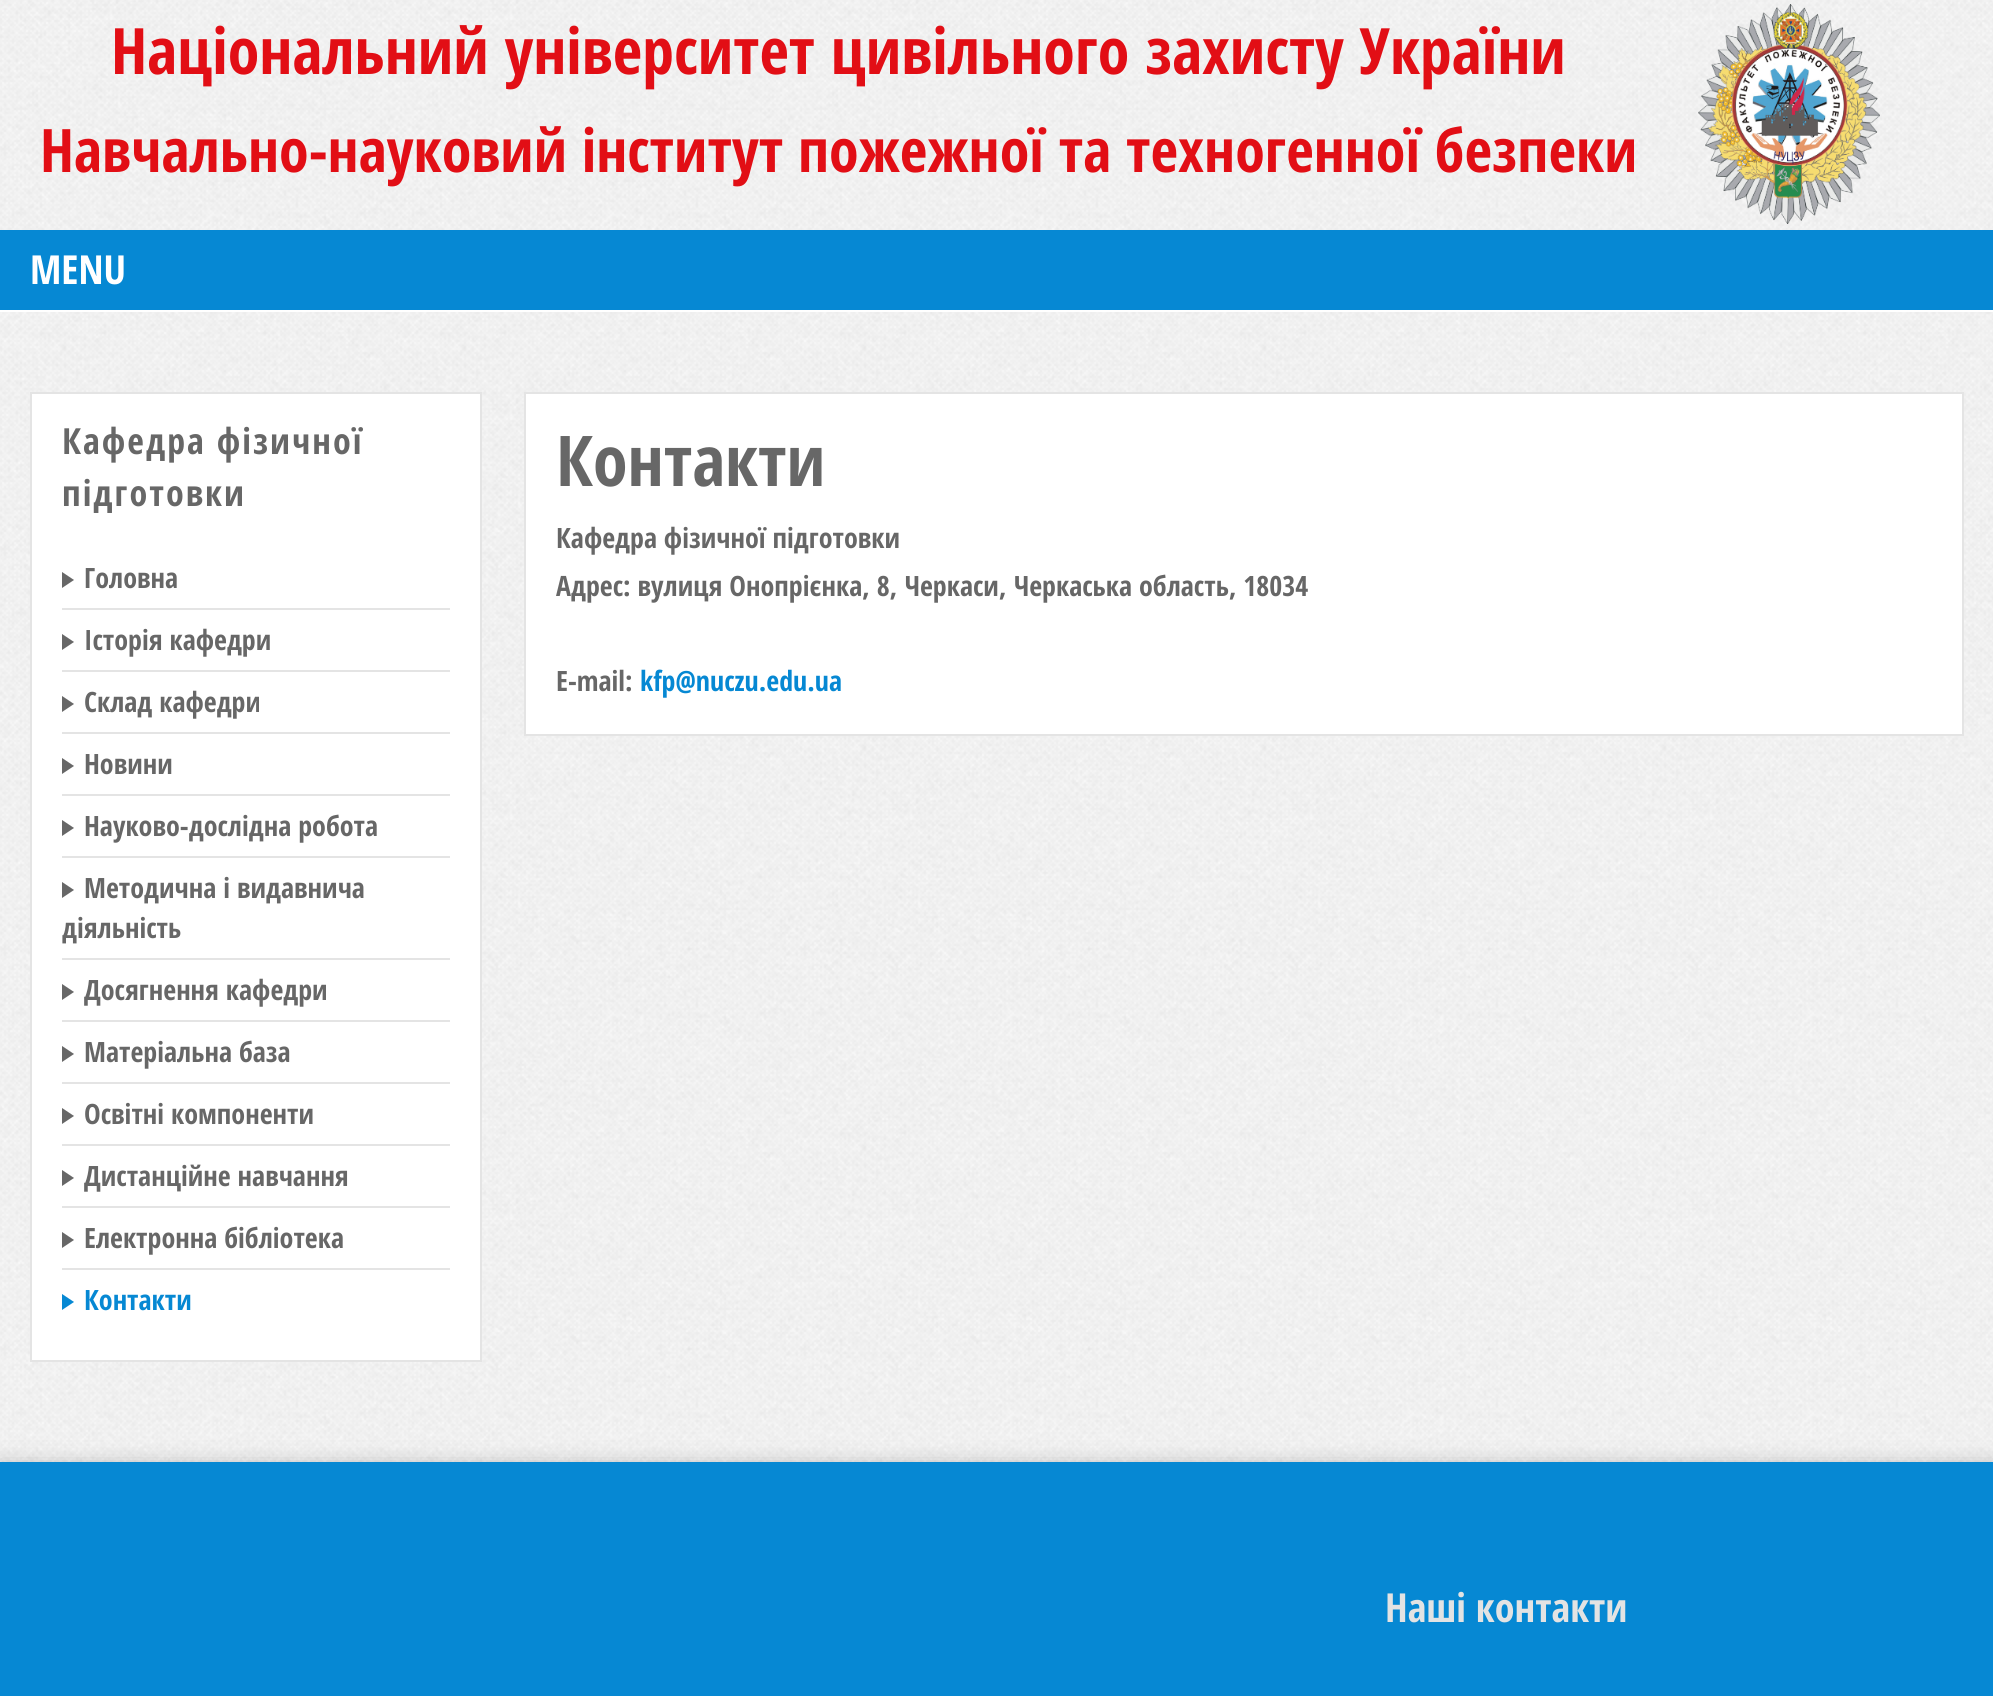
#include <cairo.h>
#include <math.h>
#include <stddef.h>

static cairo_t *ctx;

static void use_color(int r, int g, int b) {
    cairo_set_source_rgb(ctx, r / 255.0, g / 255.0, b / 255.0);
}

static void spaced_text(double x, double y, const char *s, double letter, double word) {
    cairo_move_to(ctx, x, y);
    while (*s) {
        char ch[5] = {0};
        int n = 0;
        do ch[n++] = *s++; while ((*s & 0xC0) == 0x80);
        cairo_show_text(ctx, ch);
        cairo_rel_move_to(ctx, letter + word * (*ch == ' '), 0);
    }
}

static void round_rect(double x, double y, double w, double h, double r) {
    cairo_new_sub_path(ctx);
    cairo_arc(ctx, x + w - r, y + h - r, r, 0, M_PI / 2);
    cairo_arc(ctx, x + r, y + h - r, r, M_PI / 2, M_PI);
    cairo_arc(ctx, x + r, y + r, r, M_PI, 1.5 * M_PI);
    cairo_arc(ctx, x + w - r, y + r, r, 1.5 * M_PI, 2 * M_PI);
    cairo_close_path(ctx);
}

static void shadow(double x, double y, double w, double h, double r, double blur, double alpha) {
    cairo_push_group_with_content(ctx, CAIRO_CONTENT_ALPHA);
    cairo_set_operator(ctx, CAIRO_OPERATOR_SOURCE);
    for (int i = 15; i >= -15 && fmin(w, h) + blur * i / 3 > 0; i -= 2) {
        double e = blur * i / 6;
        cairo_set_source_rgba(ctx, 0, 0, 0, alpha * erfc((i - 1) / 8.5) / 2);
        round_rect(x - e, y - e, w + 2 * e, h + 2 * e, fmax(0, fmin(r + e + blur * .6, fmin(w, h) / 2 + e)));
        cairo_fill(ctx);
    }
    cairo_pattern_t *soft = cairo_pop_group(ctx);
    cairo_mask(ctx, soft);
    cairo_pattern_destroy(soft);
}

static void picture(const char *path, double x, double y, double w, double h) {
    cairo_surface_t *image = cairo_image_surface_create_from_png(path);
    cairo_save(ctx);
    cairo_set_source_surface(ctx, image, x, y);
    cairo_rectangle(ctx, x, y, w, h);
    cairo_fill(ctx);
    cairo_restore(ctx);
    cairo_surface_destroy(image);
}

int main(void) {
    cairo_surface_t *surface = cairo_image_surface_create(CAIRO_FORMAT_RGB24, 1993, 1696);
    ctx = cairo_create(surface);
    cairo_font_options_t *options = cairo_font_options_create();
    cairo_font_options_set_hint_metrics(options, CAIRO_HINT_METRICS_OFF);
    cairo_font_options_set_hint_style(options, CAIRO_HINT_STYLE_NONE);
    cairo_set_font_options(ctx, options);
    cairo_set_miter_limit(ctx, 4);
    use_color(255, 255, 255);
    cairo_paint(ctx);
    picture("img1.png", 0, 0, 1993, 1462);
    cairo_select_font_face(ctx, "Open Sans Condensed", CAIRO_FONT_SLANT_NORMAL, CAIRO_FONT_WEIGHT_BOLD);
    cairo_set_font_size(ctx, 64);
    use_color(226, 14, 21);
    cairo_move_to(ctx, 111, 74);
    cairo_show_text(ctx, "Національний університет цивільного захисту України");
    cairo_set_font_size(ctx, 60);
    cairo_move_to(ctx, 40, 172);
    cairo_show_text(ctx, "Навчально-науковий інститут пожежної та техногенної безпеки");
    picture("img2.png", 1698, 4, 182, 220);
    use_color(6, 136, 211);
    cairo_rectangle(ctx, 0, 230, 1993, 80);
    cairo_fill(ctx);
    use_color(255, 255, 255);
    cairo_rectangle(ctx, 0, 310, 1993, 2);
    cairo_fill(ctx);
    cairo_set_font_size(ctx, 40);
    cairo_move_to(ctx, 30, 284);
    cairo_show_text(ctx, "MENU");
    cairo_rectangle(ctx, 31, 393, 450, 968);
    cairo_fill_preserve(ctx);
    use_color(228, 228, 228);
    cairo_stroke(ctx);
    cairo_set_font_size(ctx, 36);
    use_color(103, 103, 103);
    spaced_text(62, 454, "Кафедра фізичної", 2, 0);
    spaced_text(62, 506, "підготовки", 2, 0);
    use_color(228, 228, 228);
    cairo_rectangle(ctx, 62, 608, 388, 2);
    cairo_fill(ctx);
    use_color(103, 103, 103);
    cairo_new_path(ctx);
    cairo_move_to(ctx, 62, 588);
    cairo_line_to(ctx, 62, 572);
    cairo_line_to(ctx, 74, 580);
    cairo_close_path(ctx);
    cairo_fill(ctx);
    cairo_set_font_size(ctx, 28);
    cairo_move_to(ctx, 84, 588);
    cairo_show_text(ctx, "Головна");
    use_color(228, 228, 228);
    cairo_rectangle(ctx, 62, 670, 388, 2);
    cairo_fill(ctx);
    use_color(103, 103, 103);
    cairo_new_path(ctx);
    cairo_move_to(ctx, 62, 650);
    cairo_line_to(ctx, 62, 634);
    cairo_line_to(ctx, 74, 642);
    cairo_close_path(ctx);
    cairo_fill(ctx);
    cairo_move_to(ctx, 84, 650);
    cairo_show_text(ctx, "Історія кафедри");
    use_color(228, 228, 228);
    cairo_rectangle(ctx, 62, 732, 388, 2);
    cairo_fill(ctx);
    use_color(103, 103, 103);
    cairo_new_path(ctx);
    cairo_move_to(ctx, 62, 712);
    cairo_line_to(ctx, 62, 696);
    cairo_line_to(ctx, 74, 704);
    cairo_close_path(ctx);
    cairo_fill(ctx);
    cairo_move_to(ctx, 84, 712);
    cairo_show_text(ctx, "Склад кафедри");
    use_color(228, 228, 228);
    cairo_rectangle(ctx, 62, 794, 388, 2);
    cairo_fill(ctx);
    use_color(103, 103, 103);
    cairo_new_path(ctx);
    cairo_move_to(ctx, 62, 774);
    cairo_line_to(ctx, 62, 758);
    cairo_line_to(ctx, 74, 766);
    cairo_close_path(ctx);
    cairo_fill(ctx);
    cairo_move_to(ctx, 84, 774);
    cairo_show_text(ctx, "Новини");
    use_color(228, 228, 228);
    cairo_rectangle(ctx, 62, 856, 388, 2);
    cairo_fill(ctx);
    use_color(103, 103, 103);
    cairo_new_path(ctx);
    cairo_move_to(ctx, 62, 836);
    cairo_line_to(ctx, 62, 820);
    cairo_line_to(ctx, 74, 828);
    cairo_close_path(ctx);
    cairo_fill(ctx);
    cairo_move_to(ctx, 84, 836);
    cairo_show_text(ctx, "Науково-дослідна робота");
    use_color(228, 228, 228);
    cairo_rectangle(ctx, 62, 958, 388, 2);
    cairo_fill(ctx);
    use_color(103, 103, 103);
    cairo_new_path(ctx);
    cairo_move_to(ctx, 62, 898);
    cairo_line_to(ctx, 62, 882);
    cairo_line_to(ctx, 74, 890);
    cairo_close_path(ctx);
    cairo_fill(ctx);
    cairo_move_to(ctx, 84, 898);
    cairo_show_text(ctx, "Методична і видавнича");
    cairo_move_to(ctx, 62, 938);
    cairo_show_text(ctx, "діяльність");
    use_color(228, 228, 228);
    cairo_rectangle(ctx, 62, 1020, 388, 2);
    cairo_fill(ctx);
    use_color(103, 103, 103);
    cairo_new_path(ctx);
    cairo_move_to(ctx, 62, 1000);
    cairo_line_to(ctx, 62, 984);
    cairo_line_to(ctx, 74, 992);
    cairo_close_path(ctx);
    cairo_fill(ctx);
    cairo_move_to(ctx, 84, 1000);
    cairo_show_text(ctx, "Досягнення кафедри");
    use_color(228, 228, 228);
    cairo_rectangle(ctx, 62, 1082, 388, 2);
    cairo_fill(ctx);
    use_color(103, 103, 103);
    cairo_new_path(ctx);
    cairo_move_to(ctx, 62, 1062);
    cairo_line_to(ctx, 62, 1046);
    cairo_line_to(ctx, 74, 1054);
    cairo_close_path(ctx);
    cairo_fill(ctx);
    cairo_move_to(ctx, 84, 1062);
    cairo_show_text(ctx, "Матеріальна база");
    use_color(228, 228, 228);
    cairo_rectangle(ctx, 62, 1144, 388, 2);
    cairo_fill(ctx);
    use_color(103, 103, 103);
    cairo_new_path(ctx);
    cairo_move_to(ctx, 62, 1124);
    cairo_line_to(ctx, 62, 1108);
    cairo_line_to(ctx, 74, 1116);
    cairo_close_path(ctx);
    cairo_fill(ctx);
    cairo_move_to(ctx, 84, 1124);
    cairo_show_text(ctx, "Освітні компоненти");
    use_color(228, 228, 228);
    cairo_rectangle(ctx, 62, 1206, 388, 2);
    cairo_fill(ctx);
    use_color(103, 103, 103);
    cairo_new_path(ctx);
    cairo_move_to(ctx, 62, 1186);
    cairo_line_to(ctx, 62, 1170);
    cairo_line_to(ctx, 74, 1178);
    cairo_close_path(ctx);
    cairo_fill(ctx);
    cairo_move_to(ctx, 84, 1186);
    cairo_show_text(ctx, "Дистанційне навчання");
    use_color(228, 228, 228);
    cairo_rectangle(ctx, 62, 1268, 388, 2);
    cairo_fill(ctx);
    use_color(103, 103, 103);
    cairo_new_path(ctx);
    cairo_move_to(ctx, 62, 1248);
    cairo_line_to(ctx, 62, 1232);
    cairo_line_to(ctx, 74, 1240);
    cairo_close_path(ctx);
    cairo_fill(ctx);
    cairo_move_to(ctx, 84, 1248);
    cairo_show_text(ctx, "Електронна бібліотека");
    use_color(6, 136, 211);
    cairo_new_path(ctx);
    cairo_move_to(ctx, 62, 1310);
    cairo_line_to(ctx, 62, 1294);
    cairo_line_to(ctx, 74, 1302);
    cairo_close_path(ctx);
    cairo_fill(ctx);
    cairo_move_to(ctx, 84, 1310);
    cairo_show_text(ctx, "Контакти");
    use_color(255, 255, 255);
    cairo_rectangle(ctx, 525, 393, 1438, 342);
    cairo_fill_preserve(ctx);
    use_color(228, 228, 228);
    cairo_stroke(ctx);
    cairo_set_font_size(ctx, 70);
    use_color(103, 103, 103);
    cairo_move_to(ctx, 556, 486);
    cairo_show_text(ctx, "Контакти");
    cairo_set_font_size(ctx, 28);
    cairo_move_to(ctx, 556, 548);
    cairo_show_text(ctx, "Кафедра фізичної підготовки");
    cairo_move_to(ctx, 556, 596);
    cairo_show_text(ctx, "Адрес: вулиця Онопрієнка, 8, Черкаси, Черкаська область, 18034");
    cairo_move_to(ctx, 556, 691);
    cairo_show_text(ctx, "Е-mail:");
    use_color(6, 136, 211);
    cairo_move_to(ctx, 640, 691);
    cairo_show_text(ctx, "kfp@nuczu.edu.ua");
    use_color(0, 0, 0);
    shadow(0, 1462, 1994, 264, 0, 10, 0.2);
    use_color(6, 136, 211);
    cairo_rectangle(ctx, 0, 1462, 1993, 234);
    cairo_fill(ctx);
    cairo_set_font_size(ctx, 40);
    use_color(227, 227, 227);
    cairo_move_to(ctx, 1385, 1622);
    cairo_show_text(ctx, "Наші контакти");
    cairo_surface_write_to_png(surface, "result.png");
    cairo_font_options_destroy(options);
    cairo_destroy(ctx);
    cairo_surface_destroy(surface);
    return 0;
}
